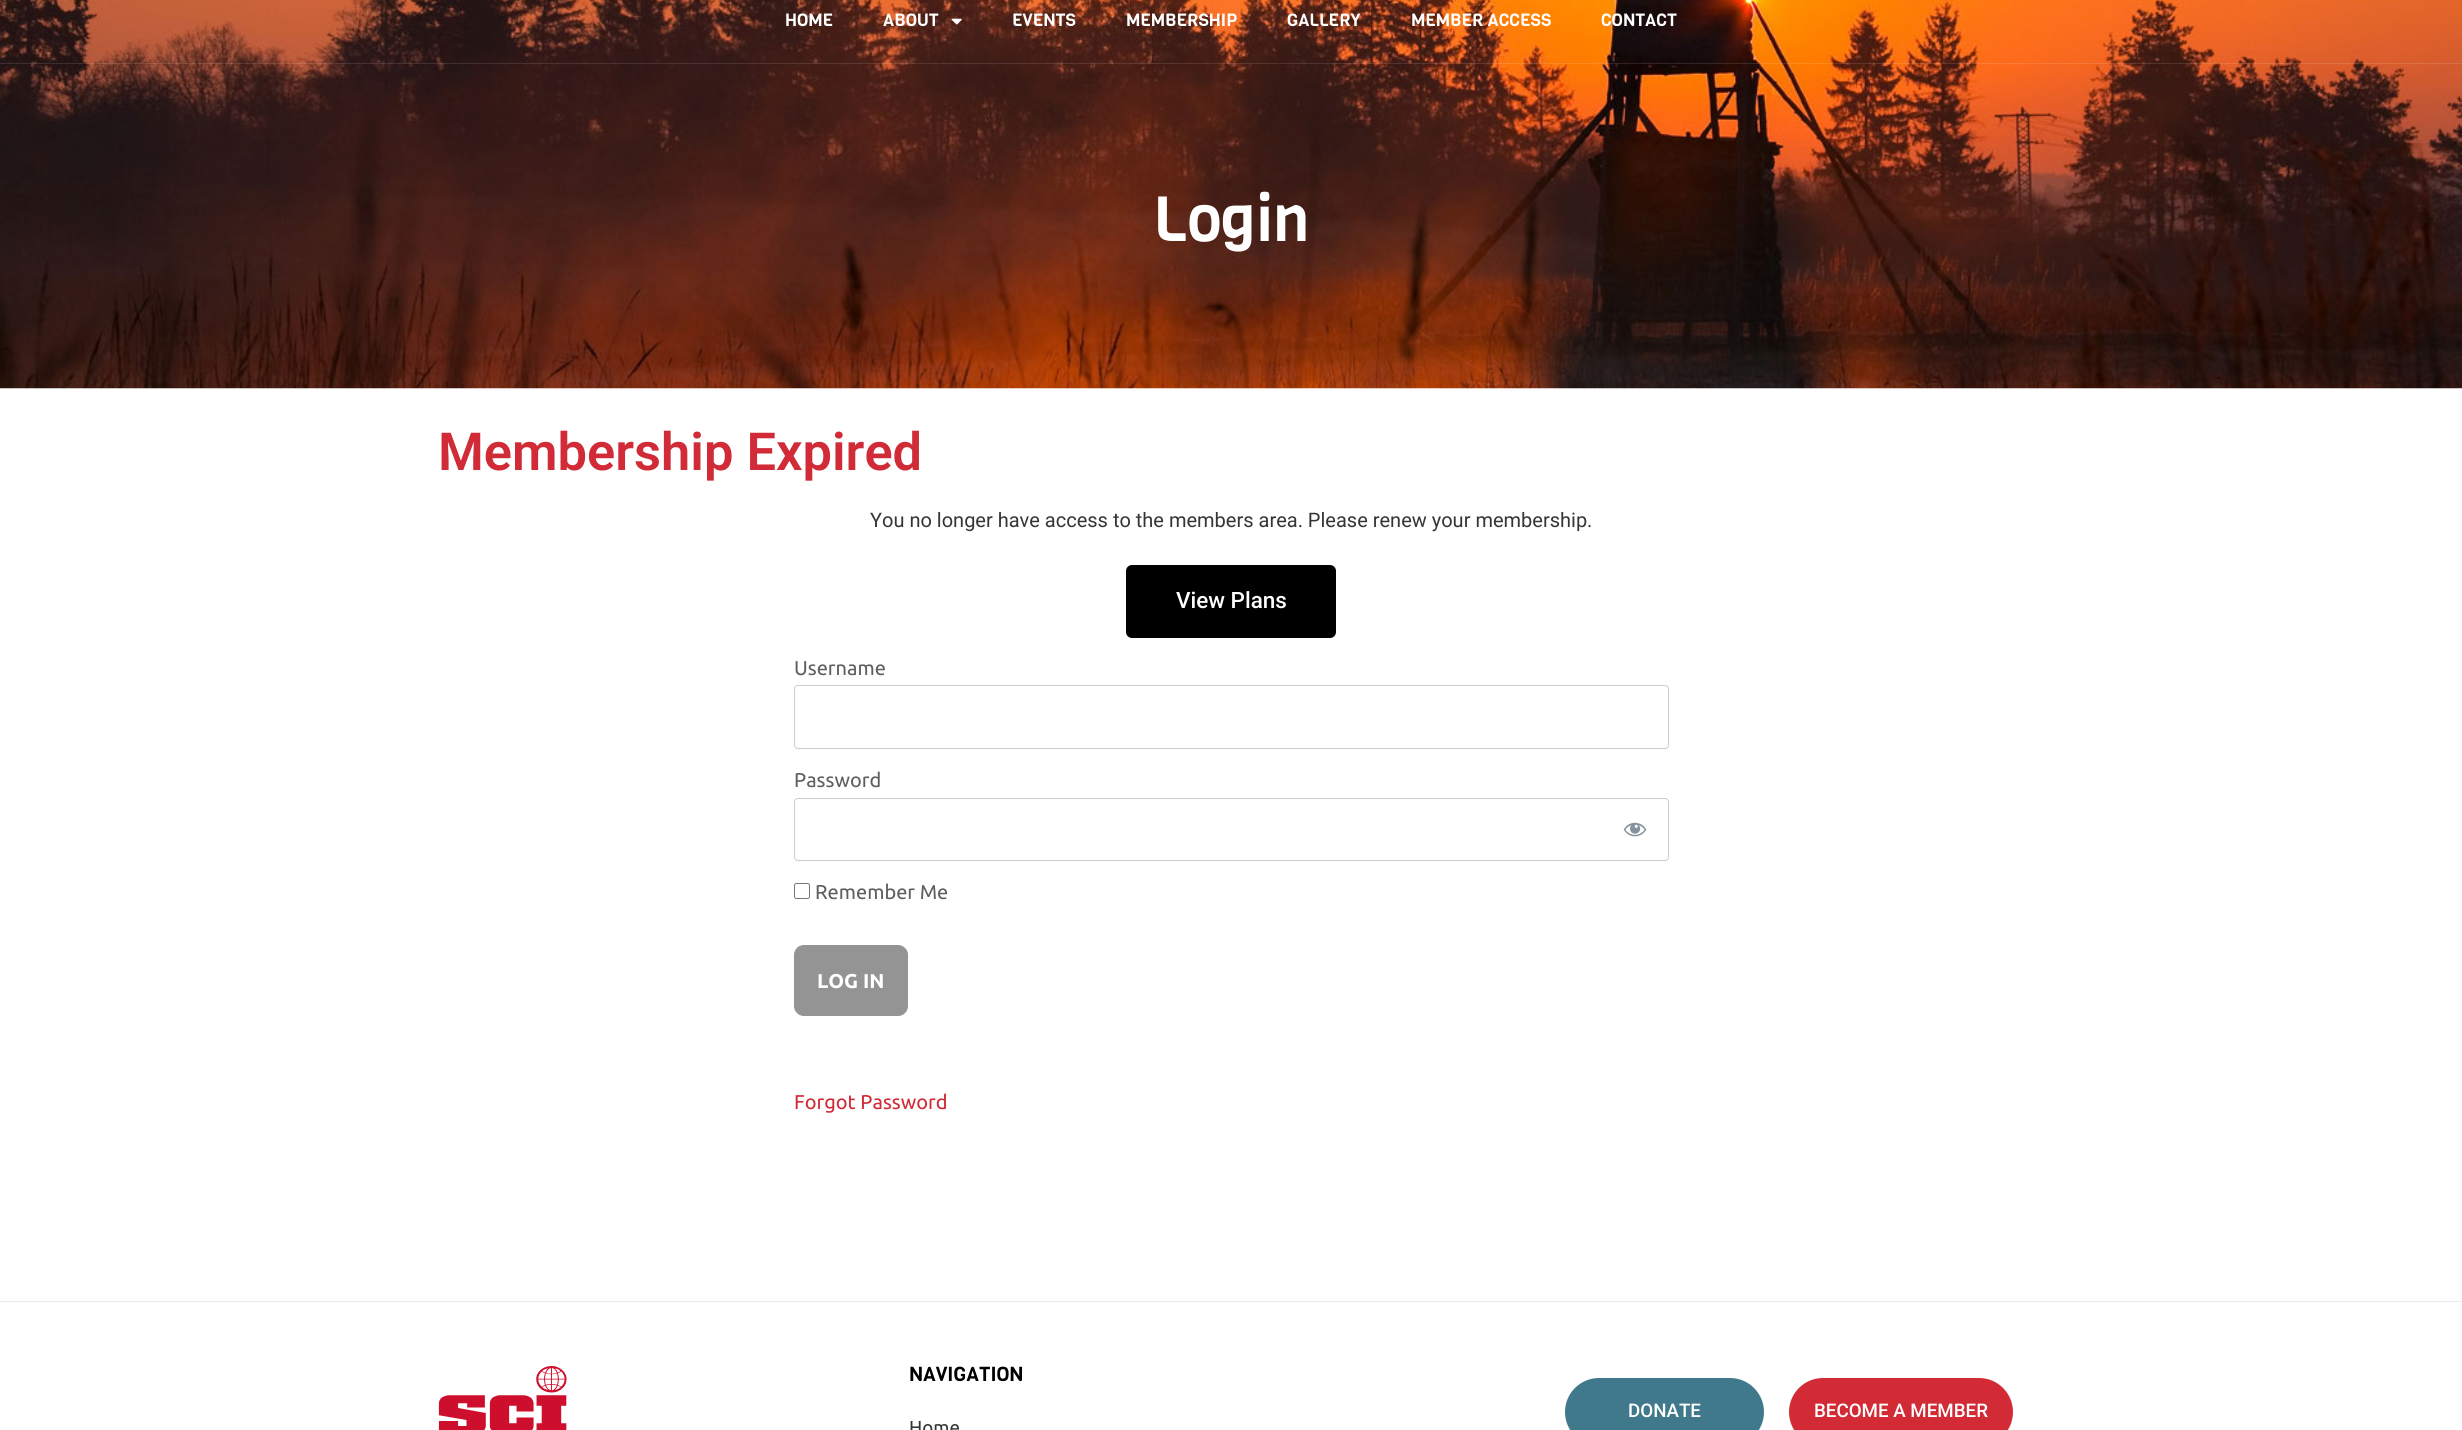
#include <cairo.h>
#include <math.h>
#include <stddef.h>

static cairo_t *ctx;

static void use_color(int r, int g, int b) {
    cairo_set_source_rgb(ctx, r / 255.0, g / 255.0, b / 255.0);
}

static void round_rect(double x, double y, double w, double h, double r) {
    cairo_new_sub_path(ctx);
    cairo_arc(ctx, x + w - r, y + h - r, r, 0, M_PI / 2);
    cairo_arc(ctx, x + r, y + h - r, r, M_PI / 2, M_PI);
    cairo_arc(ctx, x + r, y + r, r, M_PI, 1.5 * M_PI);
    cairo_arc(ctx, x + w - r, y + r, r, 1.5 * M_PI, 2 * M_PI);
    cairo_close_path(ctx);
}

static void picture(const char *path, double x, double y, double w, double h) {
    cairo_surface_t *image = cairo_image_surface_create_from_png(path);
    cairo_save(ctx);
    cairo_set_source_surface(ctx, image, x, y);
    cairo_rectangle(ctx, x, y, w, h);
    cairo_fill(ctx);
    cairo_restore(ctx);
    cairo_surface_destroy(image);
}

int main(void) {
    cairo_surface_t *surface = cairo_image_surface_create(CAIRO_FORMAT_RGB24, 2462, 1430);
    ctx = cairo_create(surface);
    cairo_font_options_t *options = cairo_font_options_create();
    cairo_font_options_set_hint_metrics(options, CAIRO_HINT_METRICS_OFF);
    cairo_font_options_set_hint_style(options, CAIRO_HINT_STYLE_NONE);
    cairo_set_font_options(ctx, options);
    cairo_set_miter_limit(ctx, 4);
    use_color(255, 255, 255);
    cairo_paint(ctx);
    picture("img2.png", 0, 0, 2462, 389);
    cairo_set_source_rgba(ctx, 1, 1, 1, 0.11);
    cairo_rectangle(ctx, 0, 63, 2462, 1);
    cairo_fill(ctx);
    cairo_select_font_face(ctx, "Viga", CAIRO_FONT_SLANT_NORMAL, CAIRO_FONT_WEIGHT_NORMAL);
    cairo_set_font_size(ctx, 17.5);
    use_color(255, 255, 255);
    cairo_move_to(ctx, 785, 26);
    cairo_show_text(ctx, "HOME");
    cairo_move_to(ctx, 883, 26);
    cairo_show_text(ctx, "ABOUT");
    picture("img1.png", 951, 18, 11, 7);
    cairo_move_to(ctx, 1012, 26);
    cairo_show_text(ctx, "EVENTS");
    cairo_move_to(ctx, 1126, 26);
    cairo_show_text(ctx, "MEMBERSHIP");
    cairo_move_to(ctx, 1287, 26);
    cairo_show_text(ctx, "GALLERY");
    cairo_move_to(ctx, 1411, 26);
    cairo_show_text(ctx, "MEMBER ACCESS");
    cairo_move_to(ctx, 1601, 26);
    cairo_show_text(ctx, "CONTACT");
    cairo_set_font_size(ctx, 62.5);
    cairo_move_to(ctx, 1153, 241);
    cairo_show_text(ctx, "Login");
    cairo_select_font_face(ctx, "Roboto SemiBold", CAIRO_FONT_SLANT_NORMAL, CAIRO_FONT_WEIGHT_NORMAL);
    cairo_set_font_size(ctx, 52.4);
    use_color(208, 43, 55);
    cairo_move_to(ctx, 438, 470);
    cairo_show_text(ctx, "Membership Expired");
    cairo_select_font_face(ctx, "Roboto", CAIRO_FONT_SLANT_NORMAL, CAIRO_FONT_WEIGHT_NORMAL);
    cairo_set_font_size(ctx, 20);
    use_color(53, 53, 53);
    cairo_move_to(ctx, 870, 527);
    cairo_show_text(ctx, "You no longer have access to the members area. Please renew your membership.");
    use_color(0, 0, 0);
    round_rect(1126, 565, 210, 73, 6);
    cairo_fill(ctx);
    cairo_select_font_face(ctx, "Roboto Medium", CAIRO_FONT_SLANT_NORMAL, CAIRO_FONT_WEIGHT_NORMAL);
    cairo_set_font_size(ctx, 22.5);
    use_color(255, 255, 255);
    cairo_move_to(ctx, 1176, 608);
    cairo_show_text(ctx, "View Plans");
    cairo_select_font_face(ctx, "Ubuntu", CAIRO_FONT_SLANT_NORMAL, CAIRO_FONT_WEIGHT_NORMAL);
    cairo_set_font_size(ctx, 20);
    use_color(95, 95, 95);
    cairo_move_to(ctx, 794, 675);
    cairo_show_text(ctx, "Username");
    round_rect(794.5, 685.5, 874, 63, 3.5);
    use_color(204, 204, 204);
    cairo_set_line_width(ctx, 1);
    cairo_stroke(ctx);
    use_color(95, 95, 95);
    cairo_move_to(ctx, 794, 787);
    cairo_show_text(ctx, "Password");
    round_rect(794.5, 798.5, 874, 62, 3.5);
    use_color(204, 204, 204);
    cairo_stroke(ctx);
    picture("img3.png", 1623, 822, 24, 15);
    round_rect(794.5, 883.5, 15, 15, 2);
    use_color(118, 118, 118);
    cairo_stroke(ctx);
    use_color(95, 95, 95);
    cairo_move_to(ctx, 815, 899);
    cairo_show_text(ctx, "Remember Me");
    use_color(148, 148, 148);
    round_rect(794.5, 945.5, 113, 70, 9.5);
    cairo_fill_preserve(ctx);
    cairo_stroke(ctx);
    cairo_select_font_face(ctx, "Ubuntu", CAIRO_FONT_SLANT_NORMAL, CAIRO_FONT_WEIGHT_BOLD);
    use_color(255, 255, 255);
    cairo_move_to(ctx, 817, 988);
    cairo_show_text(ctx, "LOG IN");
    cairo_select_font_face(ctx, "Ubuntu", CAIRO_FONT_SLANT_NORMAL, CAIRO_FONT_WEIGHT_NORMAL);
    use_color(208, 43, 55);
    cairo_move_to(ctx, 794, 1109);
    cairo_show_text(ctx, "Forgot Password");
    use_color(235, 235, 235);
    cairo_rectangle(ctx, 0, 1301, 2462, 1);
    cairo_fill(ctx);
    picture("img4.png", 438, 1366, 129, 64);
    cairo_select_font_face(ctx, "Viga", CAIRO_FONT_SLANT_NORMAL, CAIRO_FONT_WEIGHT_NORMAL);
    use_color(0, 0, 0);
    cairo_move_to(ctx, 909, 1381);
    cairo_show_text(ctx, "NAVIGATION");
    cairo_select_font_face(ctx, "Ubuntu", CAIRO_FONT_SLANT_NORMAL, CAIRO_FONT_WEIGHT_NORMAL);
    cairo_set_font_size(ctx, 18.75);
    use_color(53, 53, 53);
    cairo_move_to(ctx, 909, 1434);
    cairo_show_text(ctx, "Home");
    use_color(64, 121, 140);
    round_rect(1565, 1378, 199, 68, 34);
    cairo_fill(ctx);
    cairo_select_font_face(ctx, "Roboto Medium", CAIRO_FONT_SLANT_NORMAL, CAIRO_FONT_WEIGHT_NORMAL);
    use_color(255, 255, 255);
    cairo_move_to(ctx, 1628, 1417);
    cairo_show_text(ctx, "DONATE");
    use_color(210, 43, 53);
    round_rect(1789, 1378, 224, 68, 34);
    cairo_fill(ctx);
    use_color(255, 255, 255);
    cairo_move_to(ctx, 1814, 1417);
    cairo_show_text(ctx, "BECOME A MEMBER");
    cairo_surface_write_to_png(surface, "result.png");
    cairo_font_options_destroy(options);
    cairo_destroy(ctx);
    cairo_surface_destroy(surface);
    return 0;
}
